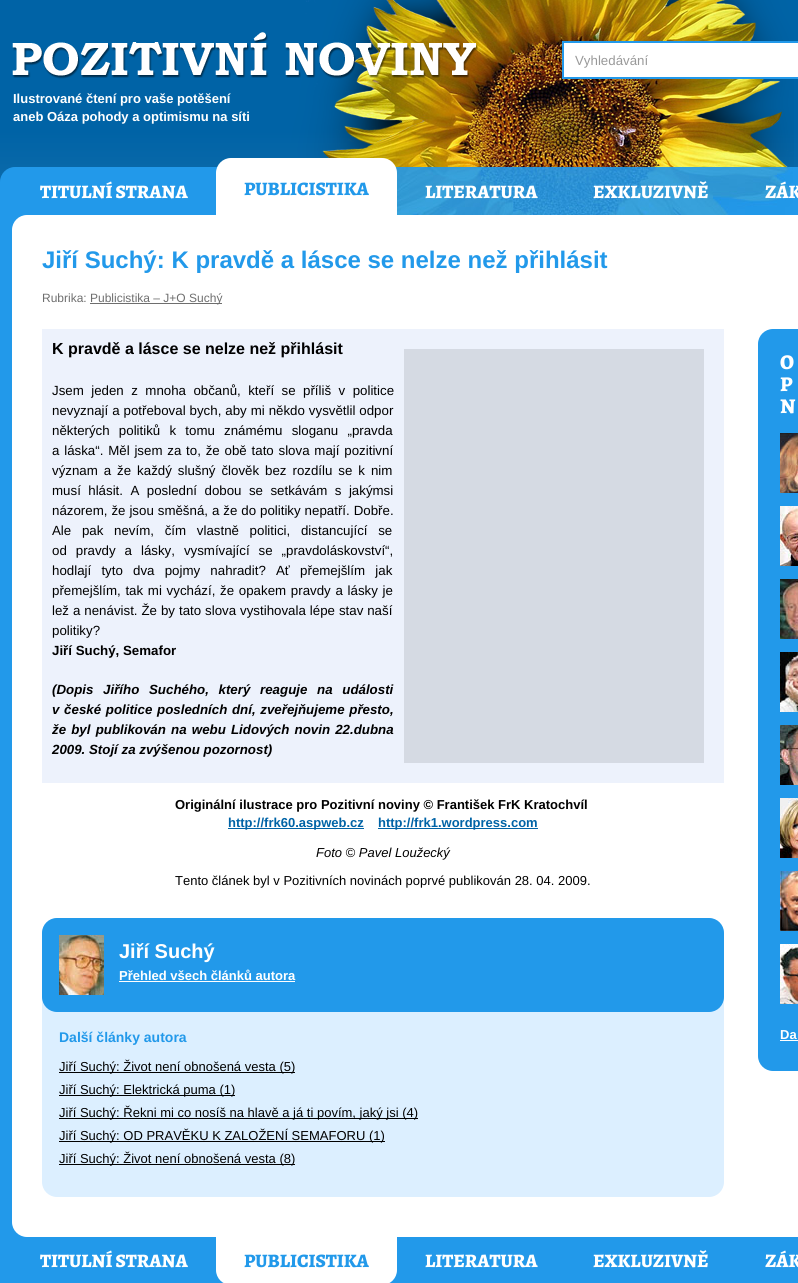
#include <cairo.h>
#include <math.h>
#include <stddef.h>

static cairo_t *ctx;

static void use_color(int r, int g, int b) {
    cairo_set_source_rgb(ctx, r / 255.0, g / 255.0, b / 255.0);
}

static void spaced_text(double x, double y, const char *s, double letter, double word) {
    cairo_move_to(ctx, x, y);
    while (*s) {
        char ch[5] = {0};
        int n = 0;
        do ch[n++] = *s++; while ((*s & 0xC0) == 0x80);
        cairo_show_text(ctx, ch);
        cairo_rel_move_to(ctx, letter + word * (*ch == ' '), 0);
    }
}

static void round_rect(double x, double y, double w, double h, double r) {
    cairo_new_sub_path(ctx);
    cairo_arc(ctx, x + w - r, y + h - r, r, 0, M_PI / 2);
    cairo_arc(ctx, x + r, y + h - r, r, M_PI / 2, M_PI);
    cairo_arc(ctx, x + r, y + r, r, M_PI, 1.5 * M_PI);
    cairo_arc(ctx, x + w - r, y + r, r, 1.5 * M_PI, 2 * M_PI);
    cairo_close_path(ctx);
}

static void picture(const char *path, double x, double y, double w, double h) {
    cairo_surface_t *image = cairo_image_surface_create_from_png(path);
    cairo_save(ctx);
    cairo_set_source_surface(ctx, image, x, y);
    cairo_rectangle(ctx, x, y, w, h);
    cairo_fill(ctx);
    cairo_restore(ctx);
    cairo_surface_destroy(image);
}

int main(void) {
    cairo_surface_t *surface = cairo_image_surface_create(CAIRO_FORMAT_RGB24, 798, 1283);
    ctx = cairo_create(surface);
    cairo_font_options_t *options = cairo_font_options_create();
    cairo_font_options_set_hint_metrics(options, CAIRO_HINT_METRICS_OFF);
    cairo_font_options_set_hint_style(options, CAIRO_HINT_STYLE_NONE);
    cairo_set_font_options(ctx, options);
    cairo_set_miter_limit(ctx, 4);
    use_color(255, 255, 255);
    cairo_paint(ctx);
    picture("img1.png", 0, 0, 798, 182);
    picture("img2.png", 12, 0, 782, 167);
    use_color(255, 255, 255);
    cairo_rectangle(ctx, 563, 42, 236, 36);
    cairo_fill_preserve(ctx);
    use_color(34, 153, 234);
    cairo_stroke(ctx);
    cairo_select_font_face(ctx, "Liberation Sans", CAIRO_FONT_SLANT_NORMAL, CAIRO_FONT_WEIGHT_NORMAL);
    cairo_set_font_size(ctx, 13.3);
    use_color(153, 153, 153);
    cairo_move_to(ctx, 575, 65);
    cairo_show_text(ctx, "Vyhledávání");
    cairo_select_font_face(ctx, "Liberation Sans", CAIRO_FONT_SLANT_NORMAL, CAIRO_FONT_WEIGHT_BOLD);
    cairo_set_font_size(ctx, 13);
    use_color(255, 255, 255);
    cairo_move_to(ctx, 13, 103);
    cairo_show_text(ctx, "Ilustrované čtení pro vaše potěšení");
    cairo_move_to(ctx, 13, 121);
    cairo_show_text(ctx, "aneb Oáza pohody a optimismu na síti");
    use_color(34, 153, 234);
    round_rect(0, 167, 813, 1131, 15);
    cairo_fill(ctx);
    picture("img3.png", 395, 167, 398, 48);
    cairo_select_font_face(ctx, "Alegreya ExtraBold", CAIRO_FONT_SLANT_NORMAL, CAIRO_FONT_WEIGHT_NORMAL);
    cairo_set_font_size(ctx, 19);
    use_color(255, 255, 255);
    cairo_move_to(ctx, 40, 198);
    cairo_show_text(ctx, "TITULNÍ STRANA");
    round_rect(216, 158, 181, 91, 15);
    cairo_fill(ctx);
    use_color(34, 153, 234);
    cairo_move_to(ctx, 244, 195);
    cairo_show_text(ctx, "PUBLICISTIKA");
    use_color(255, 255, 255);
    cairo_move_to(ctx, 425, 198);
    cairo_show_text(ctx, "LITERATURA");
    cairo_move_to(ctx, 593, 198);
    cairo_show_text(ctx, "EXKLUZIVNĚ");
    cairo_move_to(ctx, 765, 198);
    cairo_show_text(ctx, "ZÁK");
    round_rect(216, 1162, 181, 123, 15);
    cairo_fill(ctx);
    round_rect(12, 215, 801, 1022, 15);
    cairo_fill(ctx);
    cairo_select_font_face(ctx, "Liberation Sans", CAIRO_FONT_SLANT_NORMAL, CAIRO_FONT_WEIGHT_BOLD);
    cairo_set_font_size(ctx, 24);
    use_color(34, 153, 234);
    cairo_move_to(ctx, 42, 268);
    cairo_show_text(ctx, "Jiří Suchý: K pravdě a lásce se nelze než přihlásit");
    cairo_select_font_face(ctx, "Liberation Sans", CAIRO_FONT_SLANT_NORMAL, CAIRO_FONT_WEIGHT_NORMAL);
    cairo_set_font_size(ctx, 12);
    use_color(110, 110, 110);
    cairo_move_to(ctx, 42, 302);
    cairo_show_text(ctx, "Rubrika:");
    cairo_rectangle(ctx, 90, 303, 132, 1);
    cairo_fill(ctx);
    cairo_move_to(ctx, 90, 302);
    cairo_show_text(ctx, "Publicistika – J+O Suchý");
    use_color(237, 242, 252);
    cairo_rectangle(ctx, 42, 329, 682, 454);
    cairo_fill(ctx);
    cairo_select_font_face(ctx, "Liberation Sans", CAIRO_FONT_SLANT_NORMAL, CAIRO_FONT_WEIGHT_BOLD);
    cairo_set_font_size(ctx, 16);
    use_color(0, 0, 0);
    cairo_move_to(ctx, 52, 354);
    cairo_show_text(ctx, "K pravdě a lásce se nelze než přihlásit");
    use_color(213, 218, 227);
    cairo_rectangle(ctx, 404, 349, 300, 414);
    cairo_fill(ctx);
    cairo_select_font_face(ctx, "Liberation Sans", CAIRO_FONT_SLANT_NORMAL, CAIRO_FONT_WEIGHT_NORMAL);
    cairo_set_font_size(ctx, 13.3);
    use_color(0, 0, 0);
    spaced_text(52, 395, "Jsem jeden z mnoha občanů, kteří se příliš v politice", 0, 3.75);
    spaced_text(52, 415, "nevyznají a potřeboval bych, aby mi někdo vysvětlil odpor", 0, 0.25);
    spaced_text(52, 435, "některých politiků k tomu známému sloganu „pravda", 0, 5.5);
    spaced_text(52, 455, "a láska“. Měl jsem za to, že obě tato slova mají pozitivní", 0, 1.1);
    spaced_text(52, 475, "význam a že každý slušný člověk bez rozdílu se k nim", 0, 2.25);
    spaced_text(52, 495, "musí hlásit. A poslední dobou se setkávám s jakýmsi", 0, 3.75);
    spaced_text(52, 515, "názorem, že jsou směšná, a že do politiky nepatří. Dobře.", 0, 0.25);
    spaced_text(52, 535, "Ale pak nevím, čím vlastně politici, distancující se", 0, 7);
    spaced_text(52, 555, "od pravdy a lásky, vysmívající se „pravdoláskovství“,", 0, 5.25);
    spaced_text(52, 575, "hodlají tyto dva pojmy nahradit? Ať přemejšlím jak", 0, 6.5);
    spaced_text(52, 595, "přemejšlím, tak mi vychází, že opakem pravdy a lásky je", 0, 1);
    spaced_text(52, 615, "lež a nenávist. Že by tato slova vystihovala lépe stav naší", 0, 0.25);
    cairo_move_to(ctx, 52, 635);
    cairo_show_text(ctx, "politiky?");
    cairo_select_font_face(ctx, "Liberation Sans", CAIRO_FONT_SLANT_NORMAL, CAIRO_FONT_WEIGHT_BOLD);
    cairo_move_to(ctx, 52, 655);
    cairo_show_text(ctx, "Jiří Suchý, Semafor");
    cairo_select_font_face(ctx, "Liberation Sans", CAIRO_FONT_SLANT_ITALIC, CAIRO_FONT_WEIGHT_BOLD);
    spaced_text(52, 694, "(Dopis Jiřího Suchého, který reaguje na události", 0, 6);
    spaced_text(52, 714, "v české politice posledních dní, zveřejňujeme přesto,", 0, 1);
    spaced_text(52, 734, "že byl publikován na webu Lidových novin 22.dubna", 0, 1.5);
    cairo_move_to(ctx, 52, 754);
    cairo_show_text(ctx, "2009. Stojí za zvýšenou pozornost)");
    cairo_select_font_face(ctx, "Liberation Sans", CAIRO_FONT_SLANT_NORMAL, CAIRO_FONT_WEIGHT_BOLD);
    cairo_set_font_size(ctx, 13);
    cairo_move_to(ctx, 175, 809);
    cairo_show_text(ctx, "Originální ilustrace pro Pozitivní noviny © František FrK Kratochvíl");
    use_color(0, 99, 166);
    cairo_rectangle(ctx, 228, 828, 136, 1);
    cairo_fill(ctx);
    cairo_move_to(ctx, 228, 827);
    cairo_show_text(ctx, "http://frk60.aspweb.cz");
    cairo_rectangle(ctx, 378, 828, 160, 1);
    cairo_fill(ctx);
    cairo_move_to(ctx, 378, 827);
    cairo_show_text(ctx, "http://frk1.wordpress.com");
    cairo_select_font_face(ctx, "Liberation Sans", CAIRO_FONT_SLANT_ITALIC, CAIRO_FONT_WEIGHT_NORMAL);
    use_color(0, 0, 0);
    cairo_move_to(ctx, 316, 857);
    cairo_show_text(ctx, "Foto © Pavel Loužecký");
    cairo_select_font_face(ctx, "Liberation Sans", CAIRO_FONT_SLANT_NORMAL, CAIRO_FONT_WEIGHT_NORMAL);
    cairo_move_to(ctx, 175, 885);
    cairo_show_text(ctx, "Tento článek byl v Pozitivních novinách poprvé publikován 28. 04. 2009.");
    use_color(220, 239, 255);
    round_rect(42, 918, 682, 279, 15);
    cairo_fill(ctx);
    use_color(34, 153, 234);
    round_rect(42, 918, 682, 94, 15);
    cairo_fill(ctx);
    picture("img4.png", 59, 935, 45, 60);
    cairo_select_font_face(ctx, "Liberation Sans", CAIRO_FONT_SLANT_NORMAL, CAIRO_FONT_WEIGHT_BOLD);
    cairo_set_font_size(ctx, 20);
    use_color(255, 255, 255);
    cairo_move_to(ctx, 119, 958);
    cairo_show_text(ctx, "Jiří Suchý");
    cairo_set_font_size(ctx, 13);
    cairo_move_to(ctx, 119, 980);
    cairo_show_text(ctx, "Přehled všech článků autora");
    cairo_rectangle(ctx, 119, 981, 176, 1);
    cairo_fill(ctx);
    cairo_set_font_size(ctx, 14);
    use_color(34, 153, 234);
    cairo_move_to(ctx, 59, 1042);
    cairo_show_text(ctx, "Další články autora");
    use_color(0, 0, 0);
    cairo_rectangle(ctx, 59, 1072, 236, 1);
    cairo_fill(ctx);
    cairo_select_font_face(ctx, "Liberation Sans", CAIRO_FONT_SLANT_NORMAL, CAIRO_FONT_WEIGHT_NORMAL);
    cairo_set_font_size(ctx, 13);
    cairo_move_to(ctx, 59, 1071);
    cairo_show_text(ctx, "Jiří Suchý: Život není obnošená vesta (5)");
    cairo_rectangle(ctx, 59, 1095, 176, 1);
    cairo_fill(ctx);
    cairo_move_to(ctx, 59, 1094);
    cairo_show_text(ctx, "Jiří Suchý: Elektrická puma (1)");
    cairo_rectangle(ctx, 59, 1118, 359, 1);
    cairo_fill(ctx);
    cairo_move_to(ctx, 59, 1117);
    cairo_show_text(ctx, "Jiří Suchý: Řekni mi co nosíš na hlavě a já ti povím, jaký jsi (4)");
    cairo_rectangle(ctx, 59, 1141, 326, 1);
    cairo_fill(ctx);
    cairo_move_to(ctx, 59, 1140);
    cairo_show_text(ctx, "Jiří Suchý: OD PRAVĚKU K ZALOŽENÍ SEMAFORU (1)");
    cairo_rectangle(ctx, 59, 1164, 236, 1);
    cairo_fill(ctx);
    cairo_move_to(ctx, 59, 1163);
    cairo_show_text(ctx, "Jiří Suchý: Život není obnošená vesta (8)");
    use_color(34, 153, 234);
    round_rect(758, 329, 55, 742, 15);
    cairo_fill(ctx);
    cairo_select_font_face(ctx, "Alegreya ExtraBold", CAIRO_FONT_SLANT_NORMAL, CAIRO_FONT_WEIGHT_NORMAL);
    cairo_set_font_size(ctx, 21);
    use_color(255, 255, 255);
    cairo_move_to(ctx, 780, 369);
    cairo_show_text(ctx, "O");
    cairo_move_to(ctx, 780, 391);
    cairo_show_text(ctx, "P");
    cairo_move_to(ctx, 780, 413);
    cairo_show_text(ctx, "N");
    picture("img5.png", 780, 433, 18, 60);
    picture("img6.png", 780, 506, 18, 60);
    picture("img7.png", 780, 579, 18, 60);
    picture("img8.png", 780, 652, 18, 60);
    picture("img9.png", 780, 725, 18, 60);
    picture("img10.png", 780, 798, 18, 60);
    picture("img11.png", 780, 871, 18, 60);
    picture("img12.png", 780, 944, 18, 60);
    cairo_select_font_face(ctx, "Liberation Sans", CAIRO_FONT_SLANT_NORMAL, CAIRO_FONT_WEIGHT_BOLD);
    cairo_set_font_size(ctx, 13);
    cairo_move_to(ctx, 780, 1039);
    cairo_show_text(ctx, "Da");
    cairo_rectangle(ctx, 780, 1040, 18, 1);
    cairo_fill(ctx);
    cairo_select_font_face(ctx, "Alegreya ExtraBold", CAIRO_FONT_SLANT_NORMAL, CAIRO_FONT_WEIGHT_NORMAL);
    cairo_set_font_size(ctx, 19);
    cairo_move_to(ctx, 40, 1267);
    cairo_show_text(ctx, "TITULNÍ STRANA");
    use_color(34, 153, 234);
    cairo_move_to(ctx, 244, 1267);
    cairo_show_text(ctx, "PUBLICISTIKA");
    use_color(255, 255, 255);
    cairo_move_to(ctx, 425, 1267);
    cairo_show_text(ctx, "LITERATURA");
    cairo_move_to(ctx, 593, 1267);
    cairo_show_text(ctx, "EXKLUZIVNĚ");
    cairo_move_to(ctx, 765, 1267);
    cairo_show_text(ctx, "ZÁK");
    cairo_surface_write_to_png(surface, "result.png");
    cairo_font_options_destroy(options);
    cairo_destroy(ctx);
    cairo_surface_destroy(surface);
    return 0;
}
